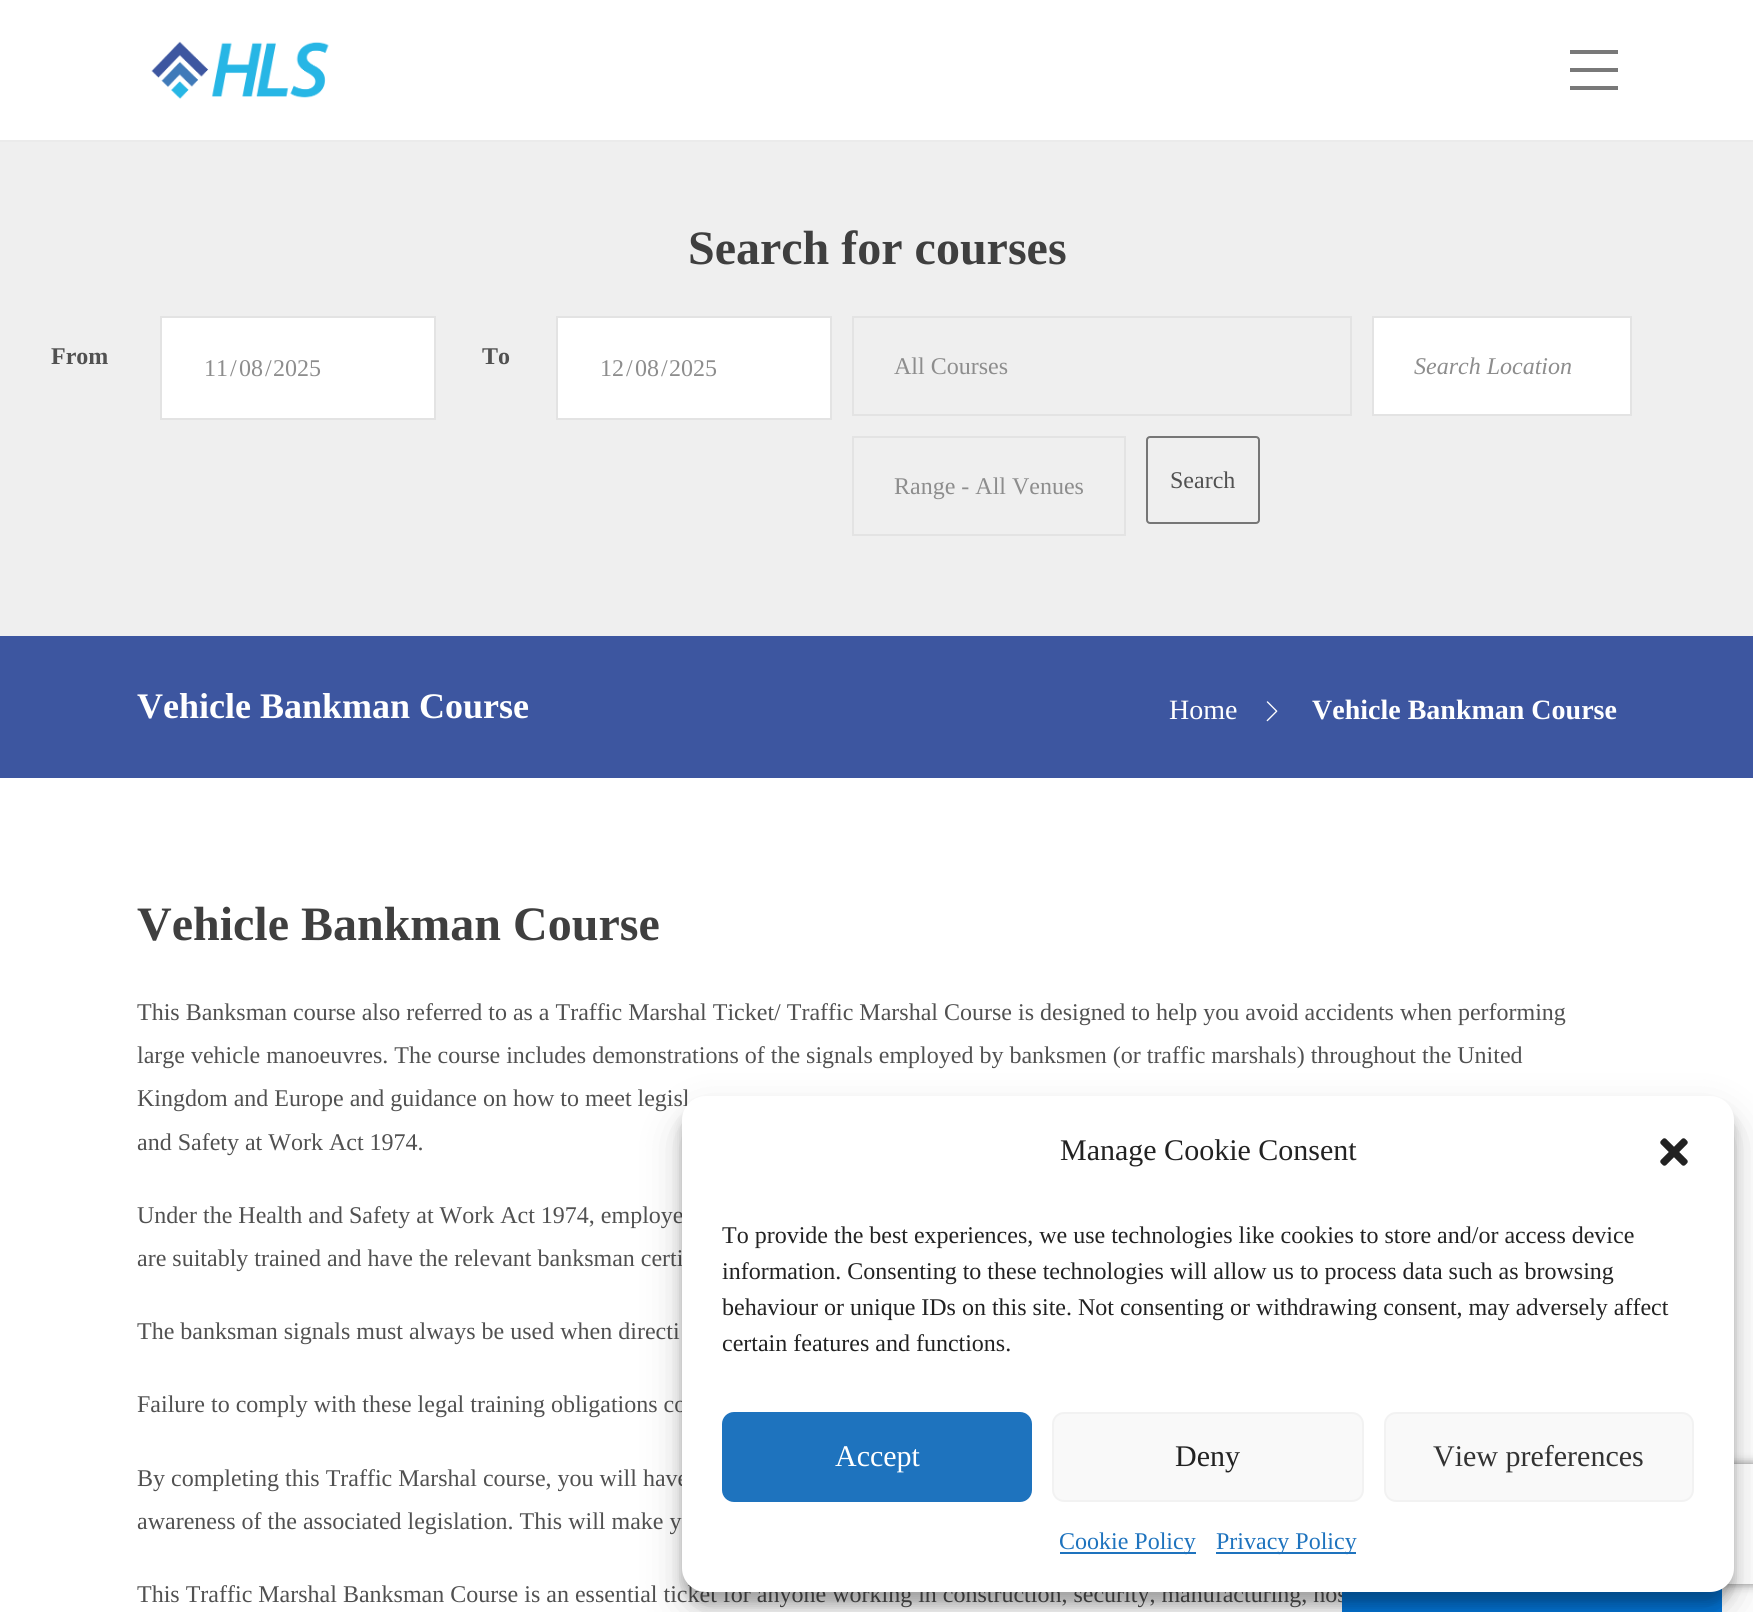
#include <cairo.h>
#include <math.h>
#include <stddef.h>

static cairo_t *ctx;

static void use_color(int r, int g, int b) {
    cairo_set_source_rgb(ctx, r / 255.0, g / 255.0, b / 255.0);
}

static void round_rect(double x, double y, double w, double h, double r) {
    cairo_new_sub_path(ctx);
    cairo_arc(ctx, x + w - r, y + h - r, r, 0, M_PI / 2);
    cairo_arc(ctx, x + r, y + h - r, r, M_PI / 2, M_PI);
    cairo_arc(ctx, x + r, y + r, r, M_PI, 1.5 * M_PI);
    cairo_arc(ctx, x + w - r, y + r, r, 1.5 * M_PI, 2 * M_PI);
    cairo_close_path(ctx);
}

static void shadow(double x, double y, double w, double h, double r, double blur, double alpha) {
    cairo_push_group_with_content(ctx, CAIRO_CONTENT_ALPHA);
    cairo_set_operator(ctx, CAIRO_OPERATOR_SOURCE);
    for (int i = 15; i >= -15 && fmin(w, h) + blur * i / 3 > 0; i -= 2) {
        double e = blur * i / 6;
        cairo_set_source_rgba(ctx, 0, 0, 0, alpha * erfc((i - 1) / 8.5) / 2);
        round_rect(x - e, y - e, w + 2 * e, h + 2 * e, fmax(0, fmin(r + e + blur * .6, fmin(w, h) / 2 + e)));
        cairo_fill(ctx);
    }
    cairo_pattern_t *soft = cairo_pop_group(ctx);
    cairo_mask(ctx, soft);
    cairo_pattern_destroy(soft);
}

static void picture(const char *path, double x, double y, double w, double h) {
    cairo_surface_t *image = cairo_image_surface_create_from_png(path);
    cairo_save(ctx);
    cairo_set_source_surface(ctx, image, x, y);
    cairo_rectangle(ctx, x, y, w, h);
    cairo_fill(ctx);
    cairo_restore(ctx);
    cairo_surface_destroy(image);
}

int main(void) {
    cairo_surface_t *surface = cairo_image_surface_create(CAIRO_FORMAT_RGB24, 1753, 1612);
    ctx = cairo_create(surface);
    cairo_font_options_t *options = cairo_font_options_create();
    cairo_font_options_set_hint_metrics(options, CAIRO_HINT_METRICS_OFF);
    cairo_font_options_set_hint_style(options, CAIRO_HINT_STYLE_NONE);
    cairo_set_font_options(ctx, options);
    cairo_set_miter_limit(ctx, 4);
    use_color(255, 255, 255);
    cairo_paint(ctx);
    use_color(235, 235, 235);
    cairo_rectangle(ctx, 0, 140, 1753, 2);
    cairo_fill(ctx);
    picture("img1.png", 151, 41, 178, 58);
    use_color(121, 121, 121);
    cairo_rectangle(ctx, 1570, 68, 48, 4);
    cairo_fill(ctx);
    cairo_rectangle(ctx, 1570, 50, 48, 4);
    cairo_fill(ctx);
    cairo_rectangle(ctx, 1570, 86, 48, 4);
    cairo_fill(ctx);
    use_color(239, 239, 239);
    cairo_rectangle(ctx, 0, 142, 1753, 494);
    cairo_fill(ctx);
    cairo_select_font_face(ctx, "Liberation Serif", CAIRO_FONT_SLANT_NORMAL, CAIRO_FONT_WEIGHT_BOLD);
    cairo_set_font_size(ctx, 48);
    use_color(63, 63, 63);
    cairo_move_to(ctx, 688, 264);
    cairo_show_text(ctx, "Search for courses");
    cairo_set_font_size(ctx, 24);
    use_color(81, 81, 81);
    cairo_move_to(ctx, 51, 364);
    cairo_show_text(ctx, "From");
    use_color(255, 255, 255);
    cairo_rectangle(ctx, 161, 317, 274, 102);
    cairo_fill_preserve(ctx);
    use_color(227, 227, 227);
    cairo_stroke(ctx);
    cairo_select_font_face(ctx, "Liberation Serif", CAIRO_FONT_SLANT_NORMAL, CAIRO_FONT_WEIGHT_NORMAL);
    use_color(141, 141, 141);
    cairo_move_to(ctx, 204, 376);
    cairo_show_text(ctx, "11");
    cairo_move_to(ctx, 230, 376);
    cairo_show_text(ctx, "/");
    cairo_move_to(ctx, 239, 376);
    cairo_show_text(ctx, "08");
    cairo_move_to(ctx, 265, 376);
    cairo_show_text(ctx, "/");
    cairo_move_to(ctx, 273, 376);
    cairo_show_text(ctx, "2025");
    cairo_select_font_face(ctx, "Liberation Serif", CAIRO_FONT_SLANT_NORMAL, CAIRO_FONT_WEIGHT_BOLD);
    use_color(81, 81, 81);
    cairo_move_to(ctx, 482, 364);
    cairo_show_text(ctx, "To");
    use_color(255, 255, 255);
    cairo_rectangle(ctx, 557, 317, 274, 102);
    cairo_fill_preserve(ctx);
    use_color(227, 227, 227);
    cairo_stroke(ctx);
    cairo_select_font_face(ctx, "Liberation Serif", CAIRO_FONT_SLANT_NORMAL, CAIRO_FONT_WEIGHT_NORMAL);
    use_color(141, 141, 141);
    cairo_move_to(ctx, 600, 376);
    cairo_show_text(ctx, "12");
    cairo_move_to(ctx, 626, 376);
    cairo_show_text(ctx, "/");
    cairo_move_to(ctx, 635, 376);
    cairo_show_text(ctx, "08");
    cairo_move_to(ctx, 661, 376);
    cairo_show_text(ctx, "/");
    cairo_move_to(ctx, 669, 376);
    cairo_show_text(ctx, "2025");
    cairo_rectangle(ctx, 853, 317, 498, 98);
    use_color(227, 227, 227);
    cairo_stroke(ctx);
    use_color(141, 141, 141);
    cairo_move_to(ctx, 894, 374);
    cairo_show_text(ctx, "All Courses");
    use_color(255, 255, 255);
    cairo_rectangle(ctx, 1373, 317, 258, 98);
    cairo_fill_preserve(ctx);
    use_color(227, 227, 227);
    cairo_stroke(ctx);
    cairo_select_font_face(ctx, "Liberation Serif", CAIRO_FONT_SLANT_ITALIC, CAIRO_FONT_WEIGHT_NORMAL);
    use_color(141, 141, 141);
    cairo_move_to(ctx, 1414, 374);
    cairo_show_text(ctx, "Search Location");
    cairo_rectangle(ctx, 853, 437, 272, 98);
    use_color(227, 227, 227);
    cairo_stroke(ctx);
    cairo_select_font_face(ctx, "Liberation Serif", CAIRO_FONT_SLANT_NORMAL, CAIRO_FONT_WEIGHT_NORMAL);
    use_color(141, 141, 141);
    cairo_move_to(ctx, 894, 494);
    cairo_show_text(ctx, "Range - All Venues");
    round_rect(1147, 437, 112, 86, 3);
    use_color(118, 118, 118);
    cairo_stroke(ctx);
    use_color(81, 81, 81);
    cairo_move_to(ctx, 1170, 488);
    cairo_show_text(ctx, "Search");
    use_color(61, 86, 160);
    cairo_rectangle(ctx, 0, 636, 1753, 142);
    cairo_fill(ctx);
    cairo_select_font_face(ctx, "Liberation Serif", CAIRO_FONT_SLANT_NORMAL, CAIRO_FONT_WEIGHT_BOLD);
    cairo_set_font_size(ctx, 36);
    use_color(255, 255, 255);
    cairo_move_to(ctx, 137, 718);
    cairo_show_text(ctx, "Vehicle Bankman Course");
    cairo_select_font_face(ctx, "Liberation Serif", CAIRO_FONT_SLANT_NORMAL, CAIRO_FONT_WEIGHT_NORMAL);
    cairo_set_font_size(ctx, 28);
    cairo_move_to(ctx, 1169, 719);
    cairo_show_text(ctx, "Home");
    picture("img2.png", 1266, 701, 12, 21);
    cairo_select_font_face(ctx, "Liberation Serif", CAIRO_FONT_SLANT_NORMAL, CAIRO_FONT_WEIGHT_BOLD);
    cairo_move_to(ctx, 1312, 719);
    cairo_show_text(ctx, "Vehicle Bankman Course");
    cairo_set_font_size(ctx, 48);
    use_color(63, 63, 63);
    cairo_move_to(ctx, 137, 940);
    cairo_show_text(ctx, "Vehicle Bankman Course");
    cairo_select_font_face(ctx, "Liberation Serif", CAIRO_FONT_SLANT_NORMAL, CAIRO_FONT_WEIGHT_NORMAL);
    cairo_set_font_size(ctx, 24);
    use_color(81, 81, 81);
    cairo_move_to(ctx, 137, 1020);
    cairo_show_text(ctx, "This Banksman course also referred to as a Traffic Marshal Ticket/ Traffic Marshal Course is designed to help you avoid accidents when performing");
    cairo_move_to(ctx, 137, 1063);
    cairo_show_text(ctx, "large vehicle manoeuvres. The course includes demonstrations of the signals employed by banksmen (or traffic marshals) throughout the United");
    cairo_move_to(ctx, 137, 1106);
    cairo_show_text(ctx, "Kingdom and Europe and guidance on how to meet legisl");
    cairo_move_to(ctx, 137, 1150);
    cairo_show_text(ctx, "and Safety at Work Act 1974.");
    cairo_move_to(ctx, 137, 1223);
    cairo_show_text(ctx, "Under the Health and Safety at Work Act 1974, employe");
    cairo_move_to(ctx, 137, 1266);
    cairo_show_text(ctx, "are suitably trained and have the relevant banksman certi");
    cairo_move_to(ctx, 137, 1339);
    cairo_show_text(ctx, "The banksman signals must always be used when directi");
    cairo_move_to(ctx, 137, 1412);
    cairo_show_text(ctx, "Failure to comply with these legal training obligations co");
    cairo_move_to(ctx, 137, 1486);
    cairo_show_text(ctx, "By completing this Traffic Marshal course, you will have");
    cairo_move_to(ctx, 137, 1529);
    cairo_show_text(ctx, "awareness of the associated legislation. This will make y");
    cairo_move_to(ctx, 137, 1602);
    cairo_show_text(ctx, "This Traffic Marshal Banksman Course is an essential ticket for anyone working in construction, security, manufacturing, hos");
    cairo_save(ctx);
    cairo_set_fill_rule(ctx, CAIRO_FILL_RULE_EVEN_ODD);
    cairo_new_path(ctx);
    cairo_move_to(ctx, 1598, 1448);
    cairo_line_to(ctx, 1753, 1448);
    cairo_line_to(ctx, 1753, 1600);
    cairo_line_to(ctx, 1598, 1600);
    cairo_close_path(ctx);
    cairo_move_to(ctx, 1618, 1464);
    cairo_line_to(ctx, 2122, 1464);
    cairo_curve_to(ctx, 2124, 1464, 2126, 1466, 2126, 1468);
    cairo_line_to(ctx, 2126, 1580);
    cairo_curve_to(ctx, 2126, 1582, 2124, 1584, 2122, 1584);
    cairo_line_to(ctx, 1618, 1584);
    cairo_curve_to(ctx, 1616, 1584, 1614, 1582, 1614, 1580);
    cairo_line_to(ctx, 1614, 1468);
    cairo_curve_to(ctx, 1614, 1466, 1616, 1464, 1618, 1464);
    cairo_close_path(ctx);
    cairo_clip(ctx);
    use_color(128, 128, 128);
    shadow(1614, 1464, 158, 120, 4, 5, 1);
    cairo_restore(ctx);
    use_color(2, 117, 216);
    cairo_rectangle(ctx, 1342, 1588, 380, 24);
    cairo_fill(ctx);
    use_color(0, 0, 0);
    shadow(682, 1108, 1052, 496, 24, 6, 0.23);
    shadow(682, 1116, 1052, 496, 24, 20, 0.19);
    use_color(255, 255, 255);
    round_rect(682, 1096, 1052, 496, 24);
    cairo_fill(ctx);
    cairo_set_font_size(ctx, 30);
    use_color(34, 34, 34);
    cairo_move_to(ctx, 1060, 1160);
    cairo_show_text(ctx, "Manage Cookie Consent");
    picture("img3.png", 1660, 1138, 28, 28);
    cairo_set_font_size(ctx, 24);
    cairo_move_to(ctx, 722, 1243);
    cairo_show_text(ctx, "To provide the best experiences, we use technologies like cookies to store and/or access device");
    cairo_move_to(ctx, 722, 1279);
    cairo_show_text(ctx, "information. Consenting to these technologies will allow us to process data such as browsing");
    cairo_move_to(ctx, 722, 1315);
    cairo_show_text(ctx, "behaviour or unique IDs on this site. Not consenting or withdrawing consent, may adversely affect");
    cairo_move_to(ctx, 722, 1351);
    cairo_show_text(ctx, "certain features and functions.");
    use_color(30, 115, 190);
    round_rect(723, 1413, 308, 88, 11);
    cairo_fill_preserve(ctx);
    cairo_stroke(ctx);
    cairo_set_font_size(ctx, 30);
    use_color(255, 255, 255);
    cairo_move_to(ctx, 835, 1466);
    cairo_show_text(ctx, "Accept");
    use_color(249, 249, 249);
    round_rect(1053, 1413, 310, 88, 11);
    cairo_fill_preserve(ctx);
    use_color(242, 242, 242);
    cairo_stroke(ctx);
    use_color(34, 34, 34);
    cairo_move_to(ctx, 1175, 1466);
    cairo_show_text(ctx, "Deny");
    use_color(249, 249, 249);
    round_rect(1385, 1413, 308, 88, 11);
    cairo_fill_preserve(ctx);
    use_color(242, 242, 242);
    cairo_stroke(ctx);
    use_color(51, 51, 51);
    cairo_move_to(ctx, 1433, 1466);
    cairo_show_text(ctx, "View preferences");
    use_color(30, 115, 190);
    cairo_rectangle(ctx, 1060, 1552, 136, 2);
    cairo_fill(ctx);
    cairo_set_font_size(ctx, 24);
    cairo_move_to(ctx, 1059, 1549);
    cairo_show_text(ctx, "Cookie Policy");
    cairo_rectangle(ctx, 1216, 1552, 140, 2);
    cairo_fill(ctx);
    cairo_move_to(ctx, 1216, 1549);
    cairo_show_text(ctx, "Privacy Policy");
    cairo_surface_write_to_png(surface, "result.png");
    cairo_font_options_destroy(options);
    cairo_destroy(ctx);
    cairo_surface_destroy(surface);
    return 0;
}
